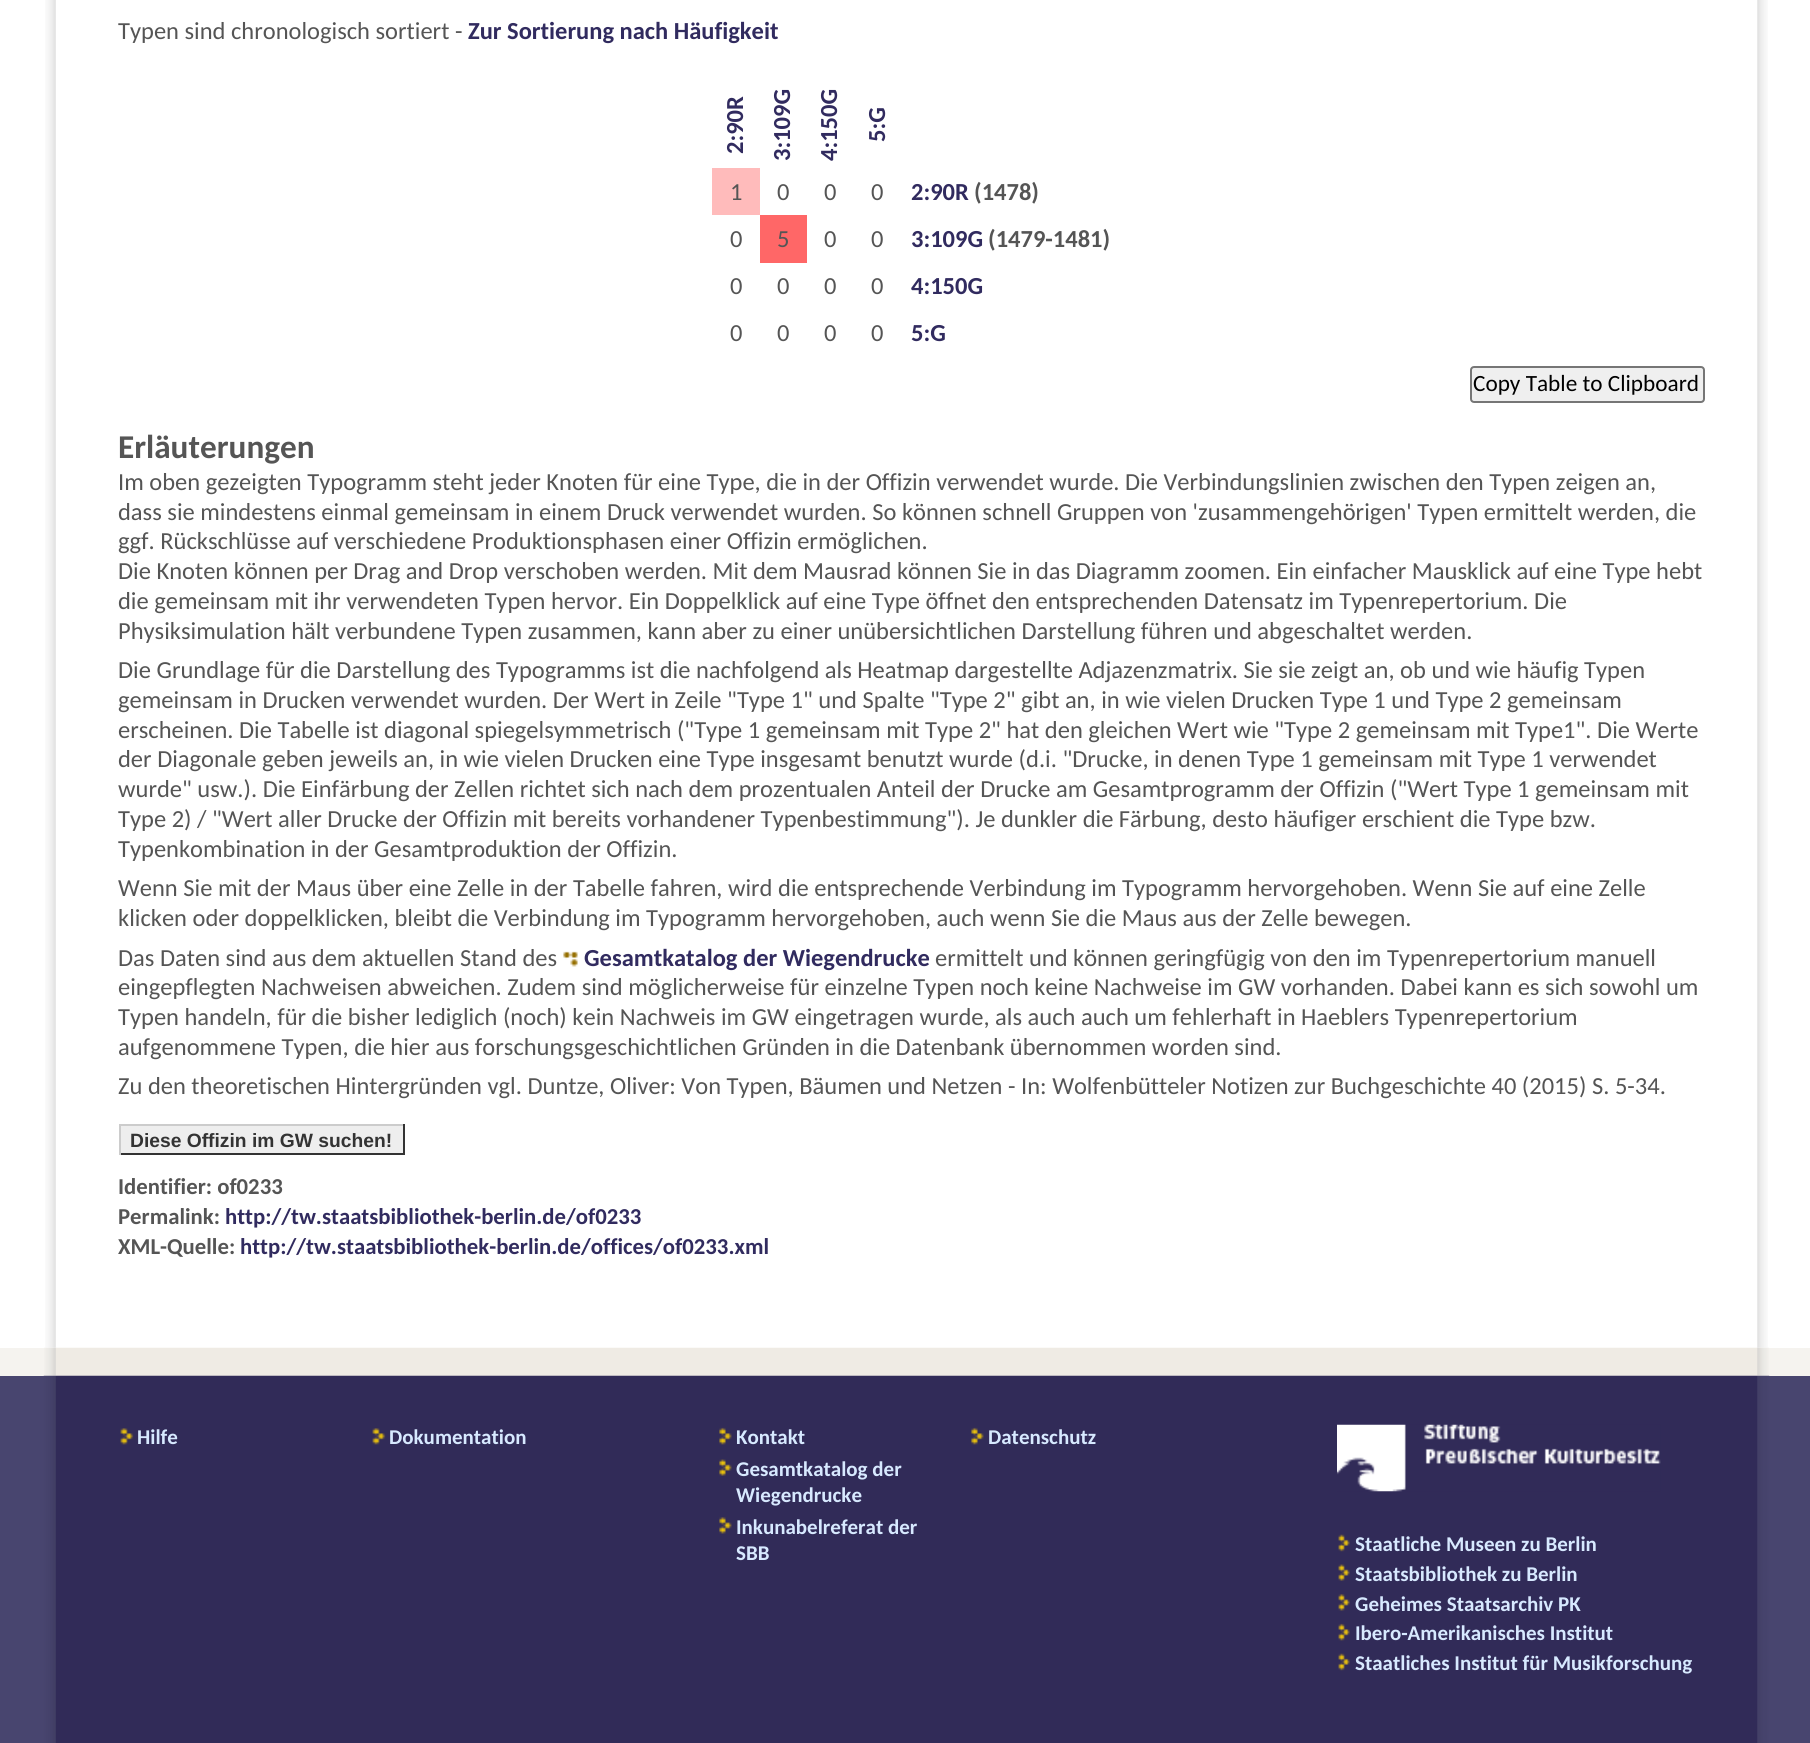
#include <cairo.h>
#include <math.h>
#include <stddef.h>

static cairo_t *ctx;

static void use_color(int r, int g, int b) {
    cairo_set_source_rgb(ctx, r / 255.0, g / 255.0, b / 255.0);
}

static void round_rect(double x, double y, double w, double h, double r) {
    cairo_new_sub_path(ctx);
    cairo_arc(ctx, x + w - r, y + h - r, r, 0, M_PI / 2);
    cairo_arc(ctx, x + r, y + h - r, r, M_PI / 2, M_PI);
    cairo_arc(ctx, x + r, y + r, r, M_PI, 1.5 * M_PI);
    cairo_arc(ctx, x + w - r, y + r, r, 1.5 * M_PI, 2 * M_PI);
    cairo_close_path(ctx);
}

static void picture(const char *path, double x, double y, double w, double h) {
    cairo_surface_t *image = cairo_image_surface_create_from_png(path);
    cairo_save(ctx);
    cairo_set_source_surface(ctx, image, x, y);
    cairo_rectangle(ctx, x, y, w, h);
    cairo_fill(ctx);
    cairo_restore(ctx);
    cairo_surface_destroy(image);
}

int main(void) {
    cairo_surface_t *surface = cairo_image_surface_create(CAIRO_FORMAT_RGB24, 1810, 1743);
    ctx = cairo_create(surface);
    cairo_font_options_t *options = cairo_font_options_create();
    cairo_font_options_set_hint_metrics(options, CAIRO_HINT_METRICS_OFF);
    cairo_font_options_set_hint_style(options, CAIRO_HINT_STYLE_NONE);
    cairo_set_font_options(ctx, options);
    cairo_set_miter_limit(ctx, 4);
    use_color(255, 255, 255);
    cairo_paint(ctx);
    picture("img1.png", 45, 0, 1723, 1348);
    use_color(255, 255, 255);
    cairo_rectangle(ctx, 56, 0, 1701, 1348);
    cairo_fill(ctx);
    cairo_select_font_face(ctx, "Carlito", CAIRO_FONT_SLANT_NORMAL, CAIRO_FONT_WEIGHT_NORMAL);
    cairo_set_font_size(ctx, 24.5);
    use_color(85, 85, 85);
    cairo_move_to(ctx, 118, 39);
    cairo_show_text(ctx, "Typen sind chronologisch sortiert -");
    cairo_select_font_face(ctx, "Carlito", CAIRO_FONT_SLANT_NORMAL, CAIRO_FONT_WEIGHT_BOLD);
    use_color(49, 43, 95);
    cairo_move_to(ctx, 468, 39);
    cairo_show_text(ctx, "Zur Sortierung nach Häufigkeit");
    cairo_save(ctx);
    cairo_translate(ctx, 743, 154);
    cairo_rotate(ctx, -90 * M_PI / 180);
    cairo_move_to(ctx, 0, 0);
    cairo_show_text(ctx, "2:90R");
    cairo_restore(ctx);
    cairo_save(ctx);
    cairo_translate(ctx, 790, 161);
    cairo_rotate(ctx, -90 * M_PI / 180);
    cairo_move_to(ctx, 0, 0);
    cairo_show_text(ctx, "3:109G");
    cairo_restore(ctx);
    cairo_save(ctx);
    cairo_translate(ctx, 837, 161);
    cairo_rotate(ctx, -90 * M_PI / 180);
    cairo_move_to(ctx, 0, 0);
    cairo_show_text(ctx, "4:150G");
    cairo_restore(ctx);
    cairo_save(ctx);
    cairo_translate(ctx, 885, 142);
    cairo_rotate(ctx, -90 * M_PI / 180);
    cairo_move_to(ctx, 0, 0);
    cairo_show_text(ctx, "5:G");
    cairo_restore(ctx);
    use_color(255, 187, 187);
    cairo_rectangle(ctx, 712, 168, 48, 47);
    cairo_fill(ctx);
    cairo_select_font_face(ctx, "Carlito", CAIRO_FONT_SLANT_NORMAL, CAIRO_FONT_WEIGHT_NORMAL);
    use_color(85, 85, 85);
    cairo_move_to(ctx, 730, 200);
    cairo_show_text(ctx, "1");
    cairo_move_to(ctx, 777, 200);
    cairo_show_text(ctx, "0");
    cairo_move_to(ctx, 824, 200);
    cairo_show_text(ctx, "0");
    cairo_move_to(ctx, 871, 200);
    cairo_show_text(ctx, "0");
    cairo_select_font_face(ctx, "Carlito", CAIRO_FONT_SLANT_NORMAL, CAIRO_FONT_WEIGHT_BOLD);
    use_color(49, 43, 95);
    cairo_move_to(ctx, 911, 200);
    cairo_show_text(ctx, "2:90R");
    use_color(85, 85, 85);
    cairo_move_to(ctx, 974, 200);
    cairo_show_text(ctx, "(1478)");
    cairo_select_font_face(ctx, "Carlito", CAIRO_FONT_SLANT_NORMAL, CAIRO_FONT_WEIGHT_NORMAL);
    cairo_move_to(ctx, 730, 247);
    cairo_show_text(ctx, "0");
    use_color(255, 103, 103);
    cairo_rectangle(ctx, 760, 215, 47, 48);
    cairo_fill(ctx);
    use_color(85, 85, 85);
    cairo_move_to(ctx, 777, 247);
    cairo_show_text(ctx, "5");
    cairo_move_to(ctx, 824, 247);
    cairo_show_text(ctx, "0");
    cairo_move_to(ctx, 871, 247);
    cairo_show_text(ctx, "0");
    cairo_select_font_face(ctx, "Carlito", CAIRO_FONT_SLANT_NORMAL, CAIRO_FONT_WEIGHT_BOLD);
    use_color(49, 43, 95);
    cairo_move_to(ctx, 911, 247);
    cairo_show_text(ctx, "3:109G");
    use_color(85, 85, 85);
    cairo_move_to(ctx, 988, 247);
    cairo_show_text(ctx, "(1479-1481)");
    cairo_select_font_face(ctx, "Carlito", CAIRO_FONT_SLANT_NORMAL, CAIRO_FONT_WEIGHT_NORMAL);
    cairo_move_to(ctx, 730, 294);
    cairo_show_text(ctx, "0");
    cairo_move_to(ctx, 777, 294);
    cairo_show_text(ctx, "0");
    cairo_move_to(ctx, 824, 294);
    cairo_show_text(ctx, "0");
    cairo_move_to(ctx, 871, 294);
    cairo_show_text(ctx, "0");
    cairo_select_font_face(ctx, "Carlito", CAIRO_FONT_SLANT_NORMAL, CAIRO_FONT_WEIGHT_BOLD);
    use_color(49, 43, 95);
    cairo_move_to(ctx, 911, 294);
    cairo_show_text(ctx, "4:150G");
    cairo_select_font_face(ctx, "Carlito", CAIRO_FONT_SLANT_NORMAL, CAIRO_FONT_WEIGHT_NORMAL);
    use_color(85, 85, 85);
    cairo_move_to(ctx, 730, 341);
    cairo_show_text(ctx, "0");
    cairo_move_to(ctx, 777, 341);
    cairo_show_text(ctx, "0");
    cairo_move_to(ctx, 824, 341);
    cairo_show_text(ctx, "0");
    cairo_move_to(ctx, 871, 341);
    cairo_show_text(ctx, "0");
    cairo_select_font_face(ctx, "Carlito", CAIRO_FONT_SLANT_NORMAL, CAIRO_FONT_WEIGHT_BOLD);
    use_color(49, 43, 95);
    cairo_move_to(ctx, 911, 341);
    cairo_show_text(ctx, "5:G");
    use_color(239, 239, 239);
    round_rect(1471, 367, 233, 35, 3);
    cairo_fill_preserve(ctx);
    use_color(118, 118, 118);
    cairo_stroke(ctx);
    cairo_select_font_face(ctx, "Carlito", CAIRO_FONT_SLANT_NORMAL, CAIRO_FONT_WEIGHT_NORMAL);
    cairo_set_font_size(ctx, 23.25);
    use_color(0, 0, 0);
    cairo_move_to(ctx, 1473, 391);
    cairo_show_text(ctx, "Copy Table to Clipboard");
    cairo_select_font_face(ctx, "Carlito", CAIRO_FONT_SLANT_NORMAL, CAIRO_FONT_WEIGHT_BOLD);
    cairo_set_font_size(ctx, 33.25);
    use_color(85, 85, 85);
    cairo_move_to(ctx, 118, 458);
    cairo_show_text(ctx, "Erläuterungen");
    cairo_select_font_face(ctx, "Carlito", CAIRO_FONT_SLANT_NORMAL, CAIRO_FONT_WEIGHT_NORMAL);
    cairo_set_font_size(ctx, 24.5);
    cairo_move_to(ctx, 118, 490);
    cairo_show_text(ctx, "Im oben gezeigten Typogramm steht jeder Knoten für eine Type, die in der Offizin verwendet wurde. Die Verbindungslinien zwischen den Typen zeigen an,");
    cairo_move_to(ctx, 118, 520);
    cairo_show_text(ctx, "dass sie mindestens einmal gemeinsam in einem Druck verwendet wurden. So können schnell Gruppen von 'zusammengehörigen' Typen ermittelt werden, die");
    cairo_move_to(ctx, 118, 549);
    cairo_show_text(ctx, "ggf. Rückschlüsse auf verschiedene Produktionsphasen einer Offizin ermöglichen.");
    cairo_move_to(ctx, 118, 579);
    cairo_show_text(ctx, "Die Knoten können per Drag and Drop verschoben werden. Mit dem Mausrad können Sie in das Diagramm zoomen. Ein einfacher Mausklick auf eine Type hebt");
    cairo_move_to(ctx, 118, 609);
    cairo_show_text(ctx, "die gemeinsam mit ihr verwendeten Typen hervor. Ein Doppelklick auf eine Type öffnet den entsprechenden Datensatz im Typenrepertorium. Die");
    cairo_move_to(ctx, 118, 639);
    cairo_show_text(ctx, "Physiksimulation hält verbundene Typen zusammen, kann aber zu einer unübersichtlichen Darstellung führen und abgeschaltet werden.");
    cairo_move_to(ctx, 118, 678);
    cairo_show_text(ctx, "Die Grundlage für die Darstellung des Typogramms ist die nachfolgend als Heatmap dargestellte Adjazenzmatrix. Sie sie zeigt an, ob und wie häufig Typen");
    cairo_move_to(ctx, 118, 708);
    cairo_show_text(ctx, "gemeinsam in Drucken verwendet wurden. Der Wert in Zeile \"Type 1\" und Spalte \"Type 2\" gibt an, in wie vielen Drucken Type 1 und Type 2 gemeinsam");
    cairo_move_to(ctx, 118, 738);
    cairo_show_text(ctx, "erscheinen. Die Tabelle ist diagonal spiegelsymmetrisch (\"Type 1 gemeinsam mit Type 2\" hat den gleichen Wert wie \"Type 2 gemeinsam mit Type1\". Die Werte");
    cairo_move_to(ctx, 118, 767);
    cairo_show_text(ctx, "der Diagonale geben jeweils an, in wie vielen Drucken eine Type insgesamt benutzt wurde (d.i. \"Drucke, in denen Type 1 gemeinsam mit Type 1 verwendet");
    cairo_move_to(ctx, 118, 797);
    cairo_show_text(ctx, "wurde\" usw.). Die Einfärbung der Zellen richtet sich nach dem prozentualen Anteil der Drucke am Gesamtprogramm der Offizin (\"Wert Type 1 gemeinsam mit");
    cairo_move_to(ctx, 118, 827);
    cairo_show_text(ctx, "Type 2) / \"Wert aller Drucke der Offizin mit bereits vorhandener Typenbestimmung\"). Je dunkler die Färbung, desto häufiger erschient die Type bzw.");
    cairo_move_to(ctx, 118, 857);
    cairo_show_text(ctx, "Typenkombination in der Gesamtproduktion der Offizin.");
    cairo_move_to(ctx, 118, 896);
    cairo_show_text(ctx, "Wenn Sie mit der Maus über eine Zelle in der Tabelle fahren, wird die entsprechende Verbindung im Typogramm hervorgehoben. Wenn Sie auf eine Zelle");
    cairo_move_to(ctx, 118, 926);
    cairo_show_text(ctx, "klicken oder doppelklicken, bleibt die Verbindung im Typogramm hervorgehoben, auch wenn Sie die Maus aus der Zelle bewegen.");
    cairo_move_to(ctx, 118, 966);
    cairo_show_text(ctx, "Das Daten sind aus dem aktuellen Stand des");
    picture("img2.png", 563, 951, 15, 16);
    cairo_select_font_face(ctx, "Carlito", CAIRO_FONT_SLANT_NORMAL, CAIRO_FONT_WEIGHT_BOLD);
    use_color(49, 43, 95);
    cairo_move_to(ctx, 584, 966);
    cairo_show_text(ctx, "Gesamtkatalog der Wiegendrucke");
    cairo_select_font_face(ctx, "Carlito", CAIRO_FONT_SLANT_NORMAL, CAIRO_FONT_WEIGHT_NORMAL);
    use_color(85, 85, 85);
    cairo_move_to(ctx, 935, 966);
    cairo_show_text(ctx, "ermittelt und können geringfügig von den im Typenrepertorium manuell");
    cairo_move_to(ctx, 118, 995);
    cairo_show_text(ctx, "eingepflegten Nachweisen abweichen. Zudem sind möglicherweise für einzelne Typen noch keine Nachweise im GW vorhanden. Dabei kann es sich sowohl um");
    cairo_move_to(ctx, 118, 1025);
    cairo_show_text(ctx, "Typen handeln, für die bisher lediglich (noch) kein Nachweis im GW eingetragen wurde, als auch auch um fehlerhaft in Haeblers Typenrepertorium");
    cairo_move_to(ctx, 118, 1055);
    cairo_show_text(ctx, "aufgenommene Typen, die hier aus forschungsgeschichtlichen Gründen in die Datenbank übernommen worden sind.");
    cairo_move_to(ctx, 118, 1094);
    cairo_show_text(ctx, "Zu den theoretischen Hintergründen vgl. Duntze, Oliver: Von Typen, Bäumen und Netzen - In: Wolfenbütteler Notizen zur Buchgeschichte 40 (2015) S. 5-34.");
    use_color(238, 238, 238);
    cairo_rectangle(ctx, 121, 1126, 282, 27);
    cairo_fill(ctx);
    cairo_select_font_face(ctx, "Liberation Sans", CAIRO_FONT_SLANT_NORMAL, CAIRO_FONT_WEIGHT_BOLD);
    cairo_set_font_size(ctx, 19.25);
    use_color(51, 51, 51);
    cairo_move_to(ctx, 130, 1147);
    cairo_show_text(ctx, "Diese Offizin im GW suchen!");
    use_color(204, 204, 204);
    cairo_rectangle(ctx, 119, 1124, 285, 2);
    cairo_fill(ctx);
    use_color(51, 51, 51);
    cairo_rectangle(ctx, 403, 1124, 2, 31);
    cairo_fill(ctx);
    cairo_rectangle(ctx, 119, 1153, 285, 2);
    cairo_fill(ctx);
    use_color(204, 204, 204);
    cairo_rectangle(ctx, 119, 1124, 2, 31);
    cairo_fill(ctx);
    cairo_select_font_face(ctx, "Carlito", CAIRO_FONT_SLANT_NORMAL, CAIRO_FONT_WEIGHT_BOLD);
    cairo_set_font_size(ctx, 22.75);
    use_color(85, 85, 85);
    cairo_move_to(ctx, 118, 1194);
    cairo_show_text(ctx, "Identifier: of0233");
    cairo_move_to(ctx, 118, 1224);
    cairo_show_text(ctx, "Permalink:");
    use_color(49, 43, 95);
    cairo_move_to(ctx, 225, 1224);
    cairo_show_text(ctx, "http://tw.staatsbibliothek-berlin.de/of0233");
    use_color(85, 85, 85);
    cairo_move_to(ctx, 118, 1254);
    cairo_show_text(ctx, "XML-Quelle:");
    use_color(49, 43, 95);
    cairo_move_to(ctx, 240, 1254);
    cairo_show_text(ctx, "http://tw.staatsbibliothek-berlin.de/offices/of0233.xml");
    use_color(245, 243, 239);
    cairo_rectangle(ctx, 0, 1348, 1810, 28);
    cairo_fill(ctx);
    picture("img3.png", 44, 1347, 1725, 29);
    use_color(239, 235, 228);
    cairo_rectangle(ctx, 56, 1348, 1701, 28);
    cairo_fill(ctx);
    use_color(72, 69, 111);
    cairo_rectangle(ctx, 0, 1376, 1810, 367);
    cairo_fill(ctx);
    picture("img4.png", 43, 1375, 1727, 368);
    use_color(49, 43, 88);
    cairo_rectangle(ctx, 56, 1376, 1701, 367);
    cairo_fill(ctx);
    picture("img5.png", 120, 1428, 14, 17);
    cairo_set_font_size(ctx, 21);
    use_color(215, 233, 255);
    cairo_move_to(ctx, 137, 1444);
    cairo_show_text(ctx, "Hilfe");
    picture("img5.png", 372, 1428, 14, 17);
    cairo_move_to(ctx, 389, 1444);
    cairo_show_text(ctx, "Dokumentation");
    picture("img6.png", 719, 1427, 13, 18);
    cairo_move_to(ctx, 736, 1444);
    cairo_show_text(ctx, "Kontakt");
    picture("img7.png", 719, 1459, 13, 17);
    cairo_move_to(ctx, 736, 1476);
    cairo_show_text(ctx, "Gesamtkatalog der");
    cairo_move_to(ctx, 736, 1502);
    cairo_show_text(ctx, "Wiegendrucke");
    picture("img8.png", 719, 1517, 13, 17);
    cairo_move_to(ctx, 736, 1534);
    cairo_show_text(ctx, "Inkunabelreferat der");
    cairo_move_to(ctx, 736, 1560);
    cairo_show_text(ctx, "SBB");
    picture("img6.png", 971, 1427, 13, 18);
    cairo_move_to(ctx, 988, 1444);
    cairo_show_text(ctx, "Datenschutz");
    picture("img9.png", 1337, 1424, 324, 68);
    picture("img10.png", 1338, 1534, 12, 18);
    cairo_move_to(ctx, 1355, 1551);
    cairo_show_text(ctx, "Staatliche Museen zu Berlin");
    picture("img11.png", 1338, 1564, 12, 17);
    cairo_move_to(ctx, 1355, 1581);
    cairo_show_text(ctx, "Staatsbibliothek zu Berlin");
    picture("img12.png", 1338, 1594, 12, 17);
    cairo_move_to(ctx, 1355, 1611);
    cairo_show_text(ctx, "Geheimes Staatsarchiv PK");
    picture("img13.png", 1338, 1623, 12, 18);
    cairo_move_to(ctx, 1355, 1640);
    cairo_show_text(ctx, "Ibero-Amerikanisches Institut");
    picture("img10.png", 1338, 1653, 12, 18);
    cairo_move_to(ctx, 1355, 1670);
    cairo_show_text(ctx, "Staatliches Institut für Musikforschung");
    cairo_surface_write_to_png(surface, "result.png");
    cairo_font_options_destroy(options);
    cairo_destroy(ctx);
    cairo_surface_destroy(surface);
    return 0;
}
